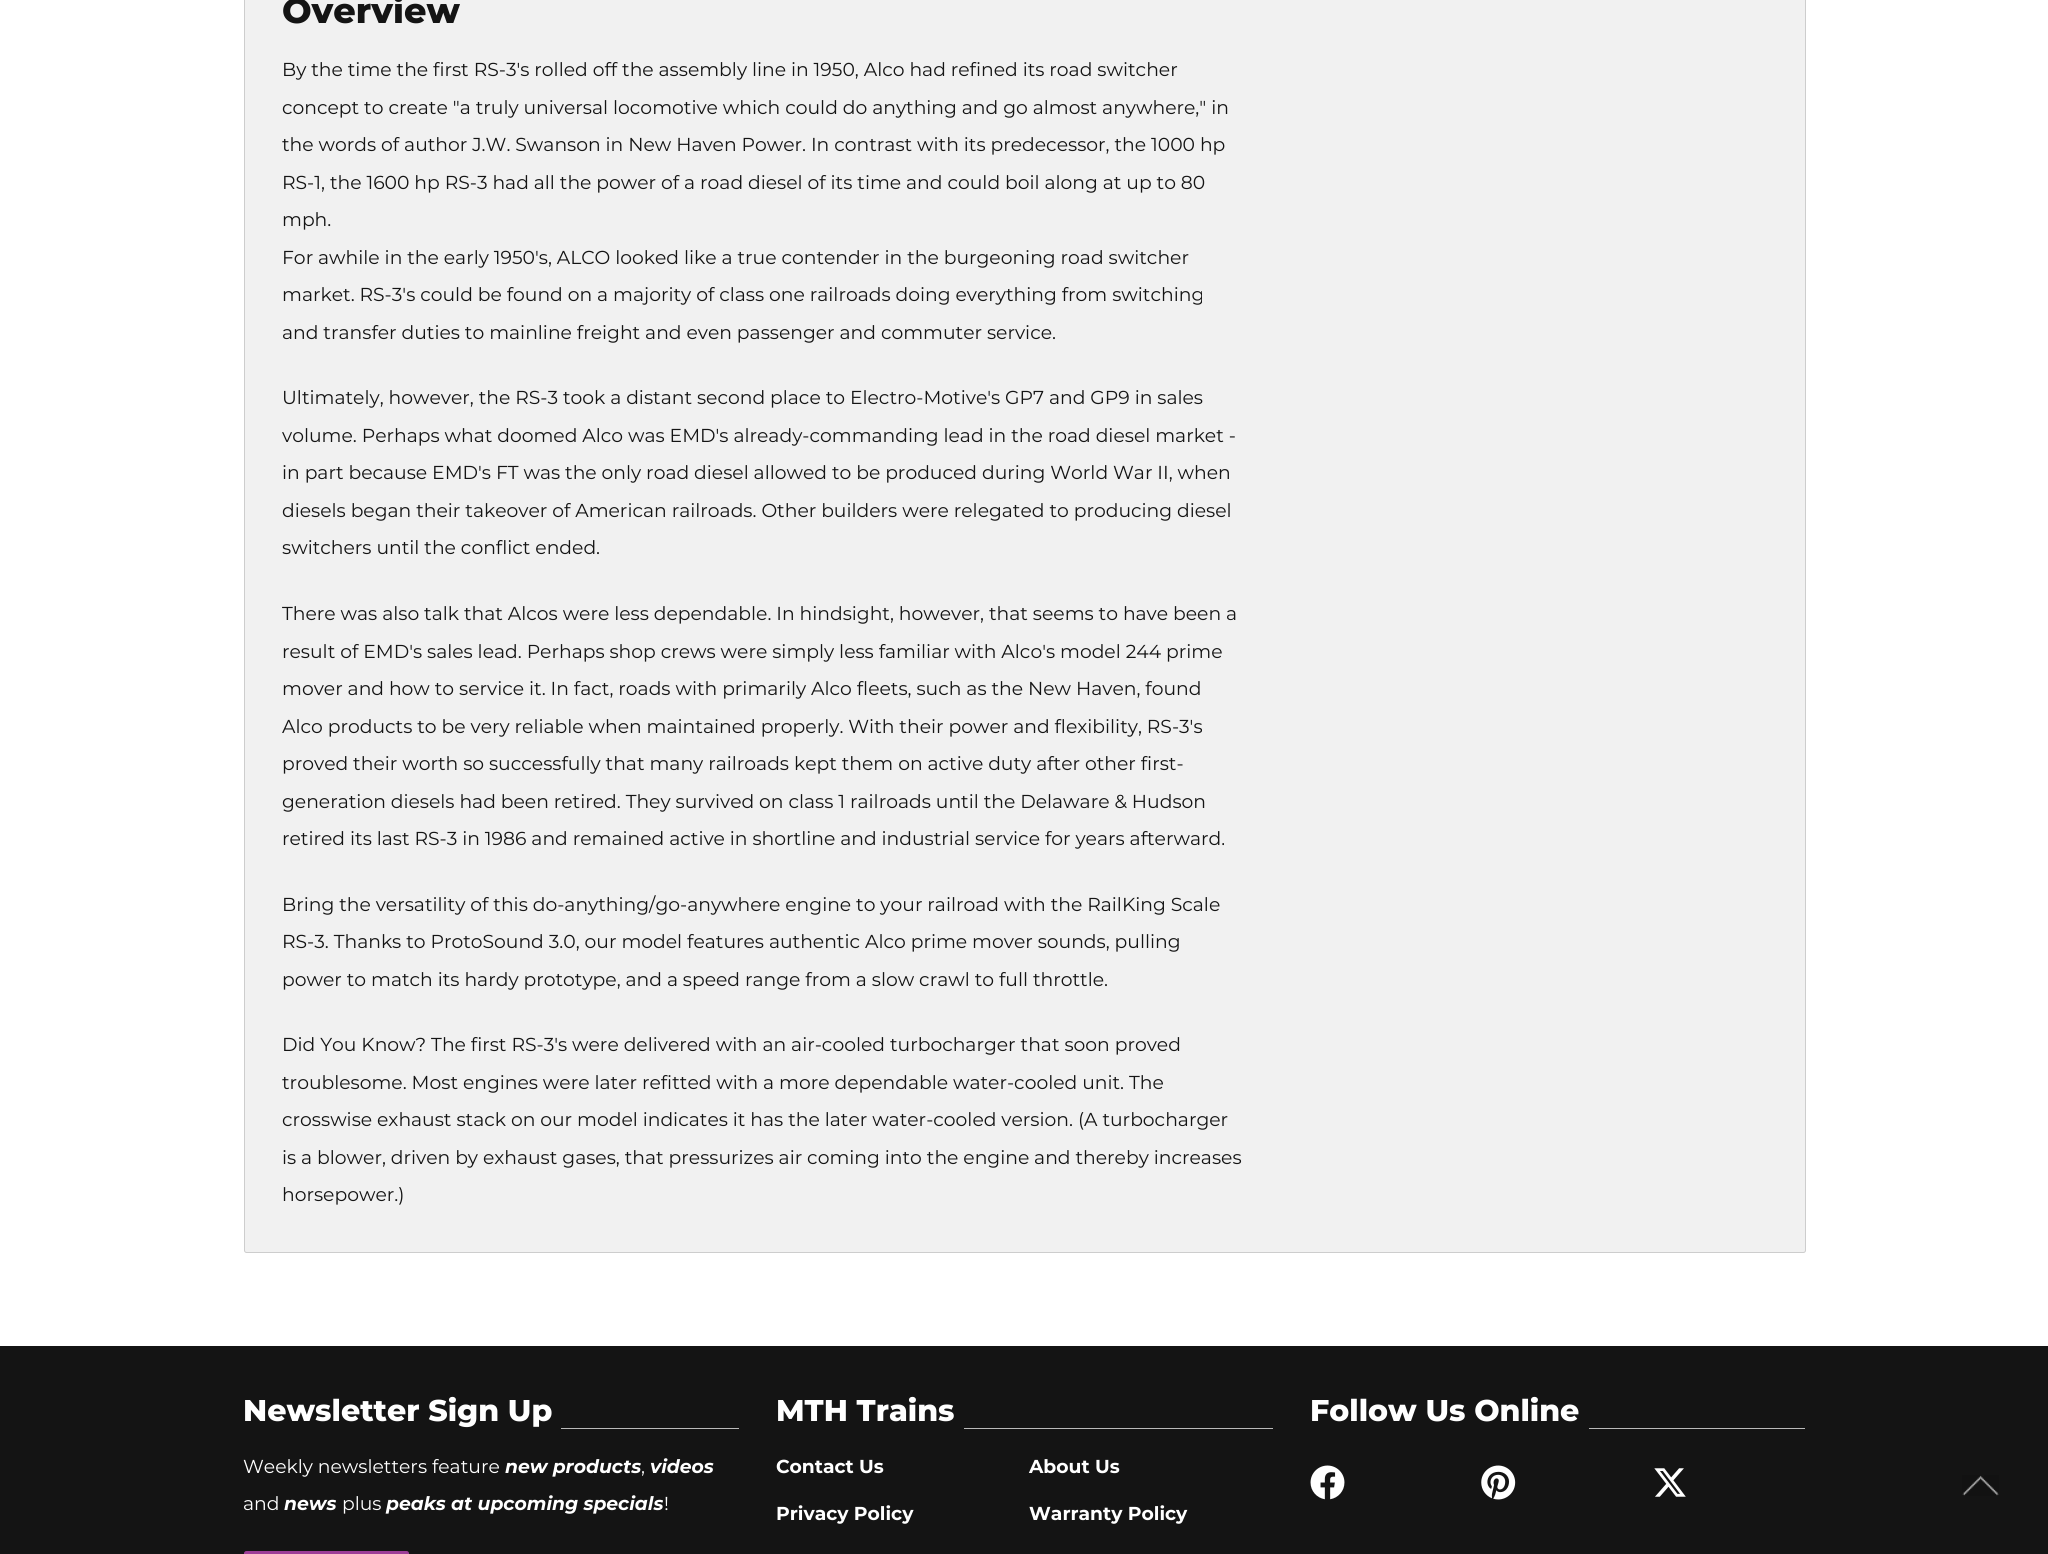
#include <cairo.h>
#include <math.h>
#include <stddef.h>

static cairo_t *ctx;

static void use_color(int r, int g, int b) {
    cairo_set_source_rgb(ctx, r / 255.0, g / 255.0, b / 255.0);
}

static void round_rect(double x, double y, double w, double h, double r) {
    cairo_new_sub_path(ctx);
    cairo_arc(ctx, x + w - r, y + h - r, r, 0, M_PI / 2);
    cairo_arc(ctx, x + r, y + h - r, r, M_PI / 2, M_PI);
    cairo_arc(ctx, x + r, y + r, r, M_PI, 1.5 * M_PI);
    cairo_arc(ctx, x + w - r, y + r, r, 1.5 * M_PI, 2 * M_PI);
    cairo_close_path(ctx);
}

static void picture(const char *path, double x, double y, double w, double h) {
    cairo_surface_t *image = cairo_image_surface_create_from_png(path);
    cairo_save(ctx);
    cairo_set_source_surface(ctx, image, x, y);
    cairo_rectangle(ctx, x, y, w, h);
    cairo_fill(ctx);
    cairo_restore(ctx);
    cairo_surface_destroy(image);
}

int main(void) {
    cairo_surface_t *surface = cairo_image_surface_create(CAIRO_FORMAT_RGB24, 2048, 1554);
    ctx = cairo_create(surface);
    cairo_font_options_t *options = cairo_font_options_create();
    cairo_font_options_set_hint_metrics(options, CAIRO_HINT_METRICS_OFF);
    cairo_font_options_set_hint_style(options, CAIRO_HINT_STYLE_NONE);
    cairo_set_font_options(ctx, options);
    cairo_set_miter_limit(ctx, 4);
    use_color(255, 255, 255);
    cairo_paint(ctx);
    use_color(241, 241, 241);
    cairo_new_path(ctx);
    cairo_move_to(ctx, 244.5, -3.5);
    cairo_line_to(ctx, 1803.5, -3.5);
    cairo_curve_to(ctx, 1804.5, -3.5, 1805.5, -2.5, 1805.5, -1.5);
    cairo_line_to(ctx, 1805.5, 1250.5);
    cairo_curve_to(ctx, 1805.5, 1251.5, 1804.5, 1252.5, 1803.5, 1252.5);
    cairo_line_to(ctx, 246.5, 1252.5);
    cairo_curve_to(ctx, 245.5, 1252.5, 244.5, 1251.5, 244.5, 1250.5);
    cairo_close_path(ctx);
    cairo_fill_preserve(ctx);
    use_color(205, 205, 205);
    cairo_set_line_width(ctx, 1);
    cairo_stroke(ctx);
    cairo_select_font_face(ctx, "Montserrat ExtraBold", CAIRO_FONT_SLANT_NORMAL, CAIRO_FONT_WEIGHT_NORMAL);
    cairo_set_font_size(ctx, 35);
    use_color(20, 20, 20);
    cairo_move_to(ctx, 282, 23);
    cairo_show_text(ctx, "Overview");
    cairo_select_font_face(ctx, "Montserrat", CAIRO_FONT_SLANT_NORMAL, CAIRO_FONT_WEIGHT_NORMAL);
    cairo_set_font_size(ctx, 18.75);
    cairo_move_to(ctx, 282, 76);
    cairo_show_text(ctx, "By the time the first RS-3's rolled off the assembly line in 1950, Alco had refined its road switcher");
    cairo_move_to(ctx, 282, 114);
    cairo_show_text(ctx, "concept to create \"a truly universal locomotive which could do anything and go almost anywhere,\" in");
    cairo_move_to(ctx, 282, 151);
    cairo_show_text(ctx, "the words of author J.W. Swanson in New Haven Power. In contrast with its predecessor, the 1000 hp");
    cairo_move_to(ctx, 282, 189);
    cairo_show_text(ctx, "RS-1, the 1600 hp RS-3 had all the power of a road diesel of its time and could boil along at up to 80");
    cairo_move_to(ctx, 282, 226);
    cairo_show_text(ctx, "mph.");
    cairo_move_to(ctx, 282, 264);
    cairo_show_text(ctx, "For awhile in the early 1950's, ALCO looked like a true contender in the burgeoning road switcher");
    cairo_move_to(ctx, 282, 301);
    cairo_show_text(ctx, "market. RS-3's could be found on a majority of class one railroads doing everything from switching");
    cairo_move_to(ctx, 282, 339);
    cairo_show_text(ctx, "and transfer duties to mainline freight and even passenger and commuter service.");
    cairo_move_to(ctx, 282, 404);
    cairo_show_text(ctx, "Ultimately, however, the RS-3 took a distant second place to Electro-Motive's GP7 and GP9 in sales");
    cairo_move_to(ctx, 282, 442);
    cairo_show_text(ctx, "volume. Perhaps what doomed Alco was EMD's already-commanding lead in the road diesel market -");
    cairo_move_to(ctx, 282, 479);
    cairo_show_text(ctx, "in part because EMD's FT was the only road diesel allowed to be produced during World War II, when");
    cairo_move_to(ctx, 282, 517);
    cairo_show_text(ctx, "diesels began their takeover of American railroads. Other builders were relegated to producing diesel");
    cairo_move_to(ctx, 282, 554);
    cairo_show_text(ctx, "switchers until the conflict ended.");
    cairo_move_to(ctx, 282, 620);
    cairo_show_text(ctx, "There was also talk that Alcos were less dependable. In hindsight, however, that seems to have been a");
    cairo_move_to(ctx, 282, 658);
    cairo_show_text(ctx, "result of EMD's sales lead. Perhaps shop crews were simply less familiar with Alco's model 244 prime");
    cairo_move_to(ctx, 282, 695);
    cairo_show_text(ctx, "mover and how to service it. In fact, roads with primarily Alco fleets, such as the New Haven, found");
    cairo_move_to(ctx, 282, 733);
    cairo_show_text(ctx, "Alco products to be very reliable when maintained properly. With their power and flexibility, RS-3's");
    cairo_move_to(ctx, 282, 770);
    cairo_show_text(ctx, "proved their worth so successfully that many railroads kept them on active duty after other first-");
    cairo_move_to(ctx, 282, 808);
    cairo_show_text(ctx, "generation diesels had been retired. They survived on class 1 railroads until the Delaware & Hudson");
    cairo_move_to(ctx, 282, 845);
    cairo_show_text(ctx, "retired its last RS-3 in 1986 and remained active in shortline and industrial service for years afterward.");
    cairo_move_to(ctx, 282, 911);
    cairo_show_text(ctx, "Bring the versatility of this do-anything/go-anywhere engine to your railroad with the RailKing Scale");
    cairo_move_to(ctx, 282, 948);
    cairo_show_text(ctx, "RS-3. Thanks to ProtoSound 3.0, our model features authentic Alco prime mover sounds, pulling");
    cairo_move_to(ctx, 282, 986);
    cairo_show_text(ctx, "power to match its hardy prototype, and a speed range from a slow crawl to full throttle.");
    cairo_move_to(ctx, 282, 1051);
    cairo_show_text(ctx, "Did You Know? The first RS-3's were delivered with an air-cooled turbocharger that soon proved");
    cairo_move_to(ctx, 282, 1089);
    cairo_show_text(ctx, "troublesome. Most engines were later refitted with a more dependable water-cooled unit. The");
    cairo_move_to(ctx, 282, 1126);
    cairo_show_text(ctx, "crosswise exhaust stack on our model indicates it has the later water-cooled version. (A turbocharger");
    cairo_move_to(ctx, 282, 1164);
    cairo_show_text(ctx, "is a blower, driven by exhaust gases, that pressurizes air coming into the engine and thereby increases");
    cairo_move_to(ctx, 282, 1201);
    cairo_show_text(ctx, "horsepower.)");
    cairo_rectangle(ctx, 0, 1346, 2048, 208);
    cairo_fill(ctx);
    cairo_select_font_face(ctx, "Montserrat ExtraBold", CAIRO_FONT_SLANT_NORMAL, CAIRO_FONT_WEIGHT_NORMAL);
    cairo_set_font_size(ctx, 30);
    use_color(255, 255, 255);
    cairo_move_to(ctx, 243, 1421);
    cairo_show_text(ctx, "Newsletter Sign Up");
    use_color(186, 186, 186);
    cairo_rectangle(ctx, 561, 1428, 178, 1);
    cairo_fill(ctx);
    cairo_select_font_face(ctx, "Montserrat", CAIRO_FONT_SLANT_NORMAL, CAIRO_FONT_WEIGHT_NORMAL);
    cairo_set_font_size(ctx, 18.75);
    use_color(255, 255, 255);
    cairo_move_to(ctx, 243, 1473);
    cairo_show_text(ctx, "Weekly newsletters feature");
    cairo_select_font_face(ctx, "Montserrat", CAIRO_FONT_SLANT_ITALIC, CAIRO_FONT_WEIGHT_BOLD);
    cairo_move_to(ctx, 505, 1473);
    cairo_show_text(ctx, "new products");
    cairo_select_font_face(ctx, "Montserrat", CAIRO_FONT_SLANT_NORMAL, CAIRO_FONT_WEIGHT_NORMAL);
    cairo_move_to(ctx, 641, 1473);
    cairo_show_text(ctx, ",");
    cairo_select_font_face(ctx, "Montserrat", CAIRO_FONT_SLANT_ITALIC, CAIRO_FONT_WEIGHT_BOLD);
    cairo_move_to(ctx, 650, 1473);
    cairo_show_text(ctx, "videos");
    cairo_select_font_face(ctx, "Montserrat", CAIRO_FONT_SLANT_NORMAL, CAIRO_FONT_WEIGHT_NORMAL);
    cairo_move_to(ctx, 243, 1510);
    cairo_show_text(ctx, "and");
    cairo_select_font_face(ctx, "Montserrat", CAIRO_FONT_SLANT_ITALIC, CAIRO_FONT_WEIGHT_BOLD);
    cairo_move_to(ctx, 284, 1510);
    cairo_show_text(ctx, "news");
    cairo_select_font_face(ctx, "Montserrat", CAIRO_FONT_SLANT_NORMAL, CAIRO_FONT_WEIGHT_NORMAL);
    cairo_move_to(ctx, 342, 1510);
    cairo_show_text(ctx, "plus");
    cairo_select_font_face(ctx, "Montserrat", CAIRO_FONT_SLANT_ITALIC, CAIRO_FONT_WEIGHT_BOLD);
    cairo_move_to(ctx, 386, 1510);
    cairo_show_text(ctx, "peaks at upcoming specials");
    cairo_select_font_face(ctx, "Montserrat", CAIRO_FONT_SLANT_NORMAL, CAIRO_FONT_WEIGHT_NORMAL);
    cairo_move_to(ctx, 664, 1510);
    cairo_show_text(ctx, "!");
    use_color(157, 61, 151);
    round_rect(244.5, 1551.5, 164, 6, 2);
    cairo_fill_preserve(ctx);
    cairo_stroke(ctx);
    cairo_select_font_face(ctx, "Montserrat ExtraBold", CAIRO_FONT_SLANT_NORMAL, CAIRO_FONT_WEIGHT_NORMAL);
    cairo_set_font_size(ctx, 30);
    use_color(255, 255, 255);
    cairo_move_to(ctx, 776, 1421);
    cairo_show_text(ctx, "MTH Trains");
    use_color(186, 186, 186);
    cairo_rectangle(ctx, 964, 1428, 309, 1);
    cairo_fill(ctx);
    cairo_select_font_face(ctx, "Montserrat", CAIRO_FONT_SLANT_NORMAL, CAIRO_FONT_WEIGHT_BOLD);
    cairo_set_font_size(ctx, 18.75);
    use_color(255, 255, 255);
    cairo_move_to(ctx, 776, 1473);
    cairo_show_text(ctx, "Contact Us");
    cairo_move_to(ctx, 1029, 1473);
    cairo_show_text(ctx, "About Us");
    cairo_move_to(ctx, 776, 1520);
    cairo_show_text(ctx, "Privacy Policy");
    cairo_move_to(ctx, 1029, 1520);
    cairo_show_text(ctx, "Warranty Policy");
    cairo_select_font_face(ctx, "Montserrat ExtraBold", CAIRO_FONT_SLANT_NORMAL, CAIRO_FONT_WEIGHT_NORMAL);
    cairo_set_font_size(ctx, 30);
    cairo_move_to(ctx, 1310, 1421);
    cairo_show_text(ctx, "Follow Us Online");
    use_color(186, 186, 186);
    cairo_rectangle(ctx, 1589, 1428, 216, 1);
    cairo_fill(ctx);
    picture("img1.png", 1310, 1465, 35, 35);
    picture("img2.png", 1481, 1465, 35, 35);
    picture("img3.png", 1654, 1468, 32, 29);
    picture("img4.png", 1962, 1475, 37, 21);
    cairo_surface_write_to_png(surface, "result.png");
    cairo_font_options_destroy(options);
    cairo_destroy(ctx);
    cairo_surface_destroy(surface);
    return 0;
}
